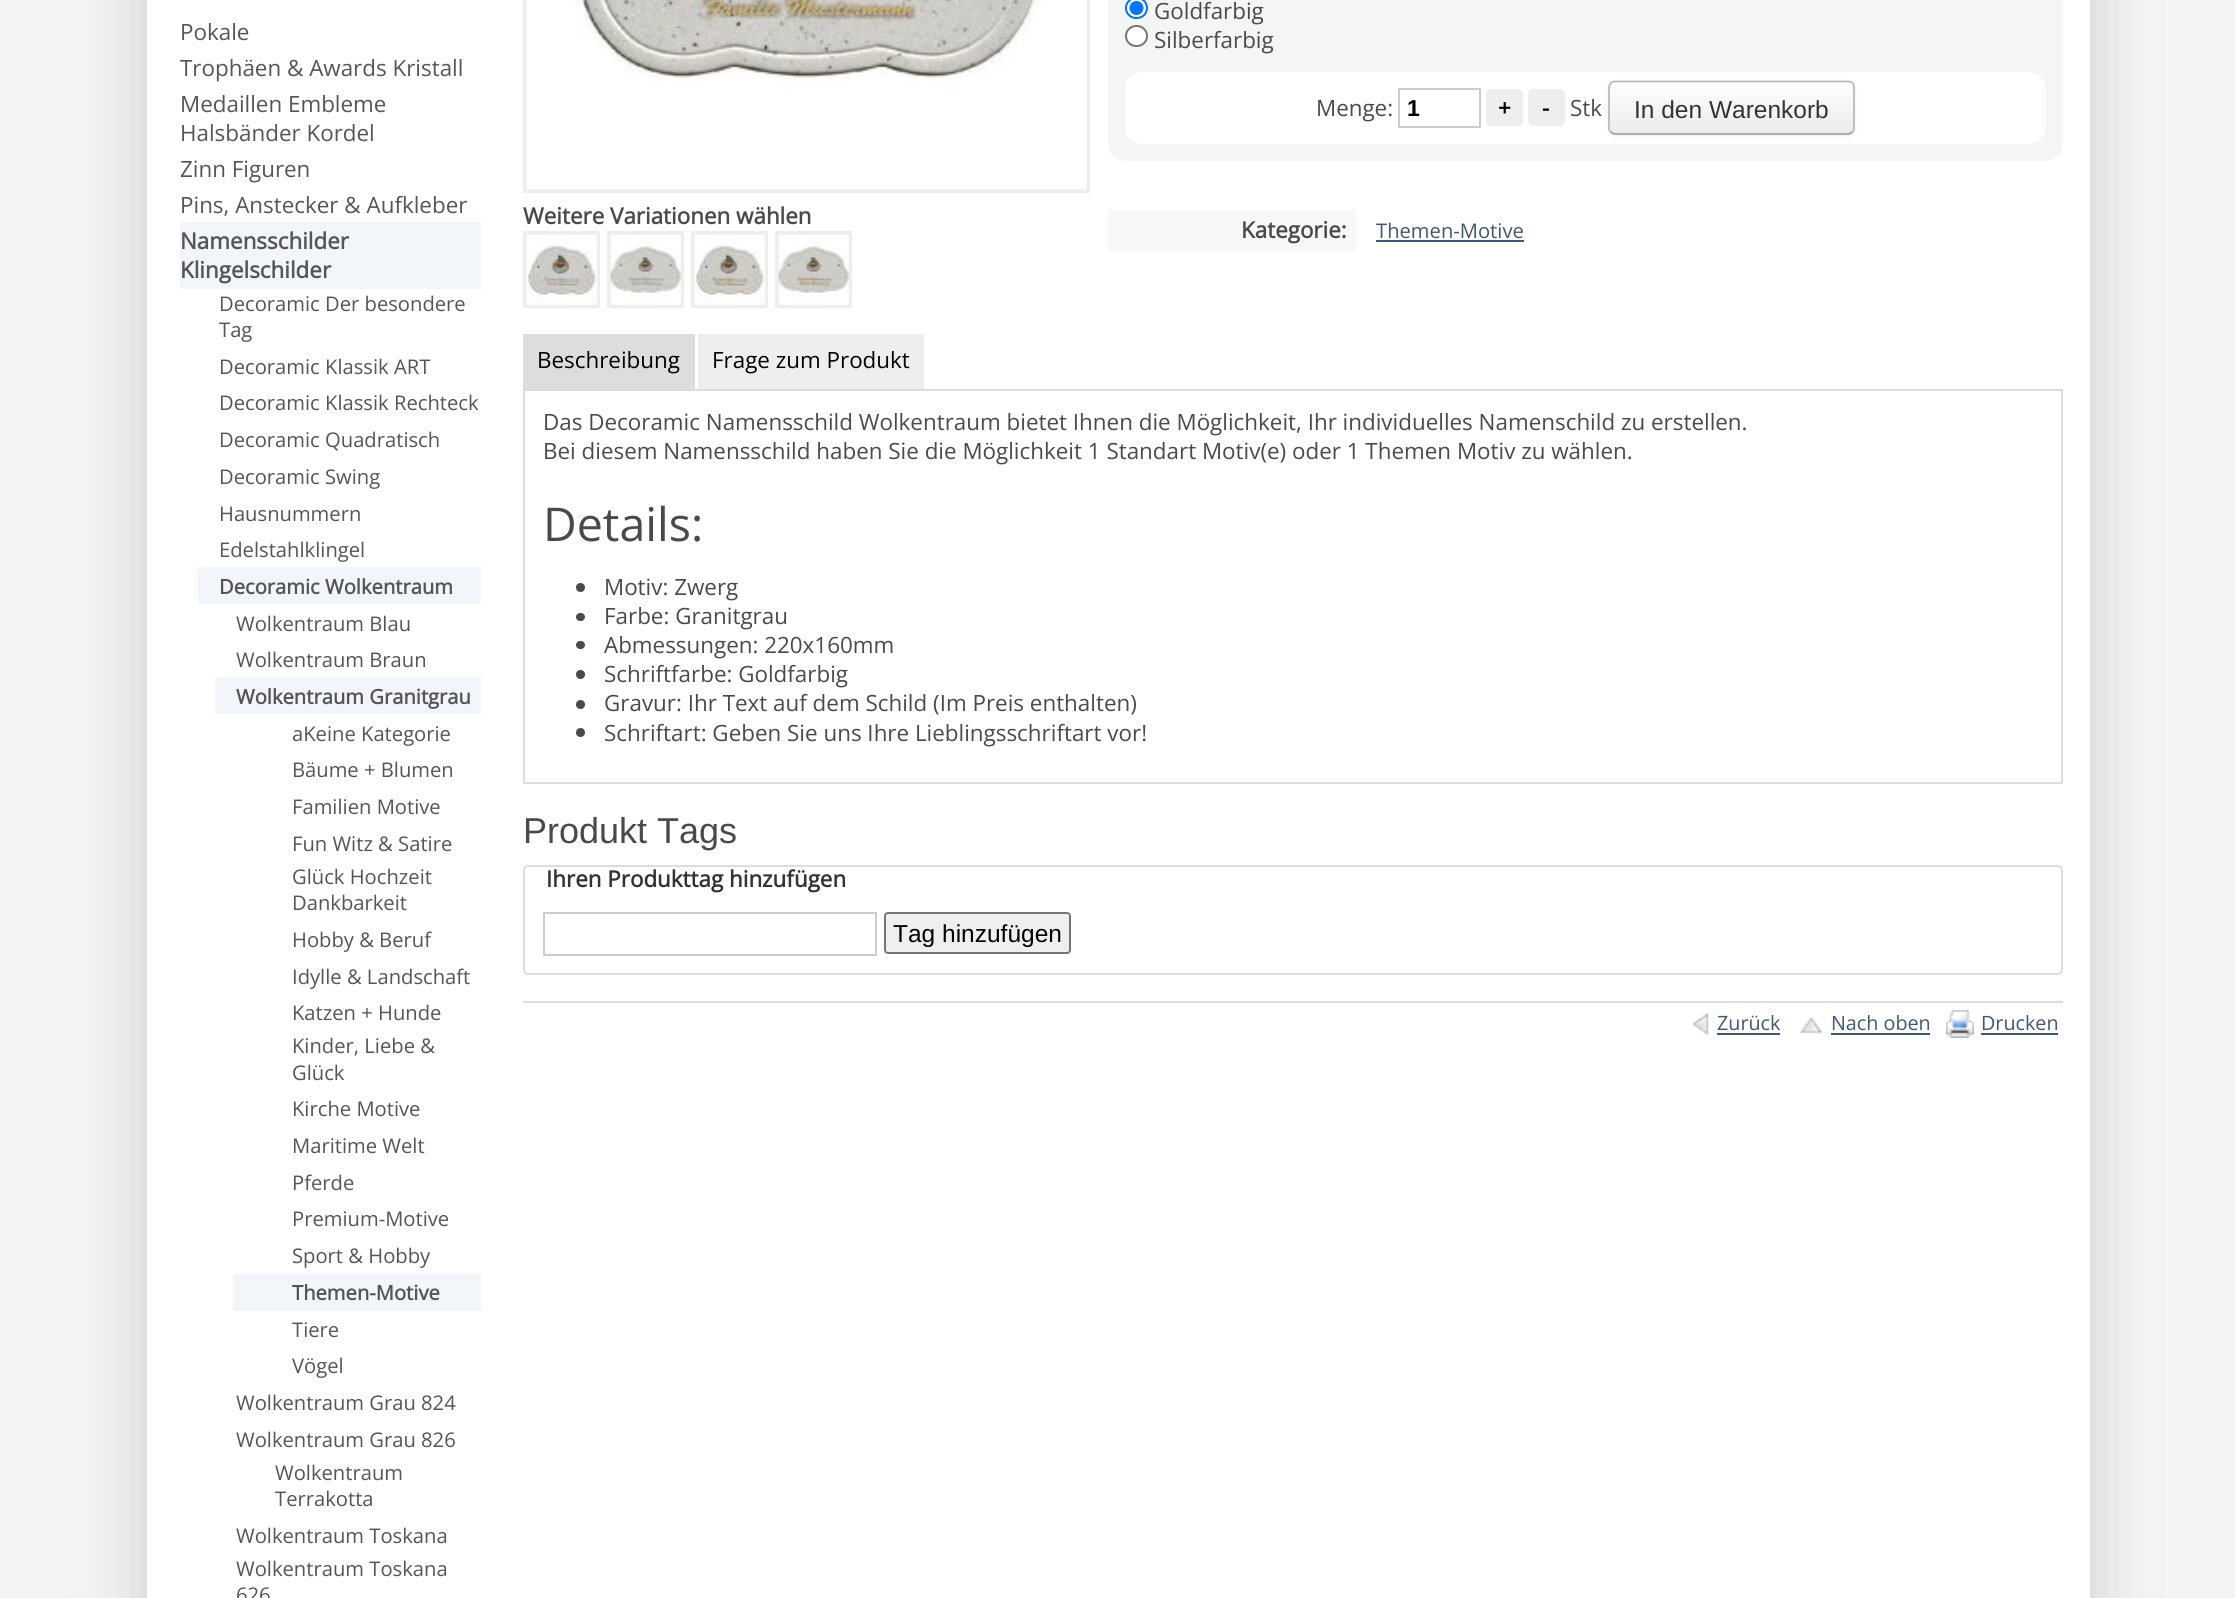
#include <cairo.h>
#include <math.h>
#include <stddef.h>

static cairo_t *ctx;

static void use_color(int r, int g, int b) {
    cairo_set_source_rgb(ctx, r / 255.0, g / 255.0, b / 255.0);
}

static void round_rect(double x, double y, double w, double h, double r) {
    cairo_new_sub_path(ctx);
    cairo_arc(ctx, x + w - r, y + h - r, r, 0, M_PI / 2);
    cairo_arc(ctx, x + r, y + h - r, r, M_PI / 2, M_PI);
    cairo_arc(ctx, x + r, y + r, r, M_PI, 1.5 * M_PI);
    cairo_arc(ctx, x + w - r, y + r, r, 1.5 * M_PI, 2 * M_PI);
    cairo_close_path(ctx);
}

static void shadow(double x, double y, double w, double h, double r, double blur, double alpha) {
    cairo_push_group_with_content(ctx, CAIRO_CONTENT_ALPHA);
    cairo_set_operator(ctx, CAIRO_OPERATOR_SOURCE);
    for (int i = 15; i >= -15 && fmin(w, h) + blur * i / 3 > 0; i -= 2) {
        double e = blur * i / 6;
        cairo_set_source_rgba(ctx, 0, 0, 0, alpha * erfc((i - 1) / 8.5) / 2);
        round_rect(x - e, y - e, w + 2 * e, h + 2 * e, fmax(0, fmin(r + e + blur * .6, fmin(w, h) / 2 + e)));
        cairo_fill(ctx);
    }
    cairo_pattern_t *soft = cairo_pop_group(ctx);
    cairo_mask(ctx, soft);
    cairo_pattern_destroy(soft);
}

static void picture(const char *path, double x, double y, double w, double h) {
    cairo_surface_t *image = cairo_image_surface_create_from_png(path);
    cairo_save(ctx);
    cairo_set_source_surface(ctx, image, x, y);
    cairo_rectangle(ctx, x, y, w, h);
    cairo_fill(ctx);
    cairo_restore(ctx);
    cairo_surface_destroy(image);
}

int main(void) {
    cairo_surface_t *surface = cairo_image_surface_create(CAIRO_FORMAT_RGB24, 2235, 1598);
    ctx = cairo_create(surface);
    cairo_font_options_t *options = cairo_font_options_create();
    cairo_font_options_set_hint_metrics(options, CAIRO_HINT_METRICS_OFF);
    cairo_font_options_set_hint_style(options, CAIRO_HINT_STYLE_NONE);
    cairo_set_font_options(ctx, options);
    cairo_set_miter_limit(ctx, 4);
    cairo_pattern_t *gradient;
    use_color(244, 244, 244);
    cairo_paint(ctx);
    use_color(204, 204, 204);
    shadow(147, -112, 1943, 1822, 7, 35, 1);
    use_color(255, 255, 255);
    cairo_rectangle(ctx, 147, 0, 1943, 1598);
    cairo_fill(ctx);
    cairo_select_font_face(ctx, "Open Sans", CAIRO_FONT_SLANT_NORMAL, CAIRO_FONT_WEIGHT_NORMAL);
    cairo_set_font_size(ctx, 22.4);
    use_color(85, 85, 85);
    cairo_move_to(ctx, 180, 40);
    cairo_show_text(ctx, "Pokale");
    cairo_move_to(ctx, 180, 76);
    cairo_show_text(ctx, "Trophäen & Awards Kristall");
    cairo_move_to(ctx, 180, 112);
    cairo_show_text(ctx, "Medaillen Embleme");
    cairo_move_to(ctx, 180, 141);
    cairo_show_text(ctx, "Halsbänder Kordel");
    cairo_move_to(ctx, 180, 177);
    cairo_show_text(ctx, "Zinn Figuren");
    cairo_move_to(ctx, 180, 213);
    cairo_show_text(ctx, "Pins, Anstecker & Aufkleber");
    use_color(242, 245, 250);
    cairo_rectangle(ctx, 180, 222, 301, 67);
    cairo_fill(ctx);
    cairo_select_font_face(ctx, "Open Sans", CAIRO_FONT_SLANT_NORMAL, CAIRO_FONT_WEIGHT_BOLD);
    use_color(85, 85, 85);
    cairo_move_to(ctx, 180, 249);
    cairo_show_text(ctx, "Namensschilder");
    cairo_move_to(ctx, 180, 278);
    cairo_show_text(ctx, "Klingelschilder");
    cairo_select_font_face(ctx, "Open Sans", CAIRO_FONT_SLANT_NORMAL, CAIRO_FONT_WEIGHT_NORMAL);
    cairo_set_font_size(ctx, 20.2);
    cairo_move_to(ctx, 219, 311);
    cairo_show_text(ctx, "Decoramic Der besondere");
    cairo_move_to(ctx, 219, 337);
    cairo_show_text(ctx, "Tag");
    cairo_move_to(ctx, 219, 374);
    cairo_show_text(ctx, "Decoramic Klassik ART");
    cairo_move_to(ctx, 219, 410);
    cairo_show_text(ctx, "Decoramic Klassik Rechteck");
    cairo_move_to(ctx, 219, 447);
    cairo_show_text(ctx, "Decoramic Quadratisch");
    cairo_move_to(ctx, 219, 484);
    cairo_show_text(ctx, "Decoramic Swing");
    cairo_move_to(ctx, 219, 521);
    cairo_show_text(ctx, "Hausnummern");
    cairo_move_to(ctx, 219, 557);
    cairo_show_text(ctx, "Edelstahlklingel");
    use_color(242, 245, 250);
    cairo_rectangle(ctx, 198, 567, 283, 37);
    cairo_fill(ctx);
    cairo_select_font_face(ctx, "Open Sans", CAIRO_FONT_SLANT_NORMAL, CAIRO_FONT_WEIGHT_BOLD);
    use_color(85, 85, 85);
    cairo_move_to(ctx, 219, 594);
    cairo_show_text(ctx, "Decoramic Wolkentraum");
    cairo_select_font_face(ctx, "Open Sans", CAIRO_FONT_SLANT_NORMAL, CAIRO_FONT_WEIGHT_NORMAL);
    cairo_move_to(ctx, 236, 631);
    cairo_show_text(ctx, "Wolkentraum Blau");
    cairo_move_to(ctx, 236, 667);
    cairo_show_text(ctx, "Wolkentraum Braun");
    use_color(242, 245, 250);
    cairo_rectangle(ctx, 215, 677, 266, 37);
    cairo_fill(ctx);
    cairo_select_font_face(ctx, "Open Sans", CAIRO_FONT_SLANT_NORMAL, CAIRO_FONT_WEIGHT_BOLD);
    use_color(85, 85, 85);
    cairo_move_to(ctx, 236, 704);
    cairo_show_text(ctx, "Wolkentraum Granitgrau");
    cairo_select_font_face(ctx, "Open Sans", CAIRO_FONT_SLANT_NORMAL, CAIRO_FONT_WEIGHT_NORMAL);
    cairo_move_to(ctx, 292, 741);
    cairo_show_text(ctx, "aKeine Kategorie");
    cairo_move_to(ctx, 292, 777);
    cairo_show_text(ctx, "Bäume + Blumen");
    cairo_move_to(ctx, 292, 814);
    cairo_show_text(ctx, "Familien Motive");
    cairo_move_to(ctx, 292, 851);
    cairo_show_text(ctx, "Fun Witz & Satire");
    cairo_move_to(ctx, 292, 884);
    cairo_show_text(ctx, "Glück Hochzeit");
    cairo_move_to(ctx, 292, 910);
    cairo_show_text(ctx, "Dankbarkeit");
    cairo_move_to(ctx, 292, 947);
    cairo_show_text(ctx, "Hobby & Beruf");
    cairo_move_to(ctx, 292, 984);
    cairo_show_text(ctx, "Idylle & Landschaft");
    cairo_move_to(ctx, 292, 1020);
    cairo_show_text(ctx, "Katzen + Hunde");
    cairo_move_to(ctx, 292, 1053);
    cairo_show_text(ctx, "Kinder, Liebe &");
    cairo_move_to(ctx, 292, 1080);
    cairo_show_text(ctx, "Glück");
    cairo_move_to(ctx, 292, 1116);
    cairo_show_text(ctx, "Kirche Motive");
    cairo_move_to(ctx, 292, 1153);
    cairo_show_text(ctx, "Maritime Welt");
    cairo_move_to(ctx, 292, 1190);
    cairo_show_text(ctx, "Pferde");
    cairo_move_to(ctx, 292, 1226);
    cairo_show_text(ctx, "Premium-Motive");
    cairo_move_to(ctx, 292, 1263);
    cairo_show_text(ctx, "Sport & Hobby");
    use_color(242, 245, 250);
    cairo_rectangle(ctx, 233, 1274, 248, 37);
    cairo_fill(ctx);
    cairo_select_font_face(ctx, "Open Sans", CAIRO_FONT_SLANT_NORMAL, CAIRO_FONT_WEIGHT_BOLD);
    use_color(85, 85, 85);
    cairo_move_to(ctx, 292, 1300);
    cairo_show_text(ctx, "Themen-Motive");
    cairo_select_font_face(ctx, "Open Sans", CAIRO_FONT_SLANT_NORMAL, CAIRO_FONT_WEIGHT_NORMAL);
    cairo_move_to(ctx, 292, 1337);
    cairo_show_text(ctx, "Tiere");
    cairo_move_to(ctx, 292, 1373);
    cairo_show_text(ctx, "Vögel");
    cairo_move_to(ctx, 236, 1410);
    cairo_show_text(ctx, "Wolkentraum Grau 824");
    cairo_move_to(ctx, 236, 1447);
    cairo_show_text(ctx, "Wolkentraum Grau 826");
    cairo_move_to(ctx, 275, 1480);
    cairo_show_text(ctx, "Wolkentraum");
    cairo_move_to(ctx, 275, 1506);
    cairo_show_text(ctx, "Terrakotta");
    cairo_move_to(ctx, 236, 1543);
    cairo_show_text(ctx, "Wolkentraum Toskana");
    cairo_move_to(ctx, 236, 1576);
    cairo_show_text(ctx, "Wolkentraum Toskana");
    cairo_move_to(ctx, 236, 1602);
    cairo_show_text(ctx, "626");
    use_color(245, 245, 245);
    round_rect(1108, -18, 955, 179, 18);
    cairo_fill(ctx);
    use_color(255, 255, 255);
    round_rect(1126, -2, 21, 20, 10);
    cairo_fill_preserve(ctx);
    use_color(0, 117, 255);
    cairo_stroke(ctx);
    cairo_arc(ctx, 1136.5, 8, 7, 0, 2 * M_PI);
    cairo_fill(ctx);
    cairo_set_font_size(ctx, 22.4);
    use_color(74, 74, 74);
    cairo_move_to(ctx, 1154, 19);
    cairo_show_text(ctx, "Goldfarbig");
    use_color(255, 255, 255);
    round_rect(1126, 26, 21, 20, 10);
    cairo_fill_preserve(ctx);
    use_color(118, 118, 118);
    cairo_stroke(ctx);
    use_color(74, 74, 74);
    cairo_move_to(ctx, 1154, 48);
    cairo_show_text(ctx, "Silberfarbig");
    use_color(255, 255, 255);
    round_rect(1125, 72, 921, 72, 18);
    cairo_fill(ctx);
    use_color(74, 74, 74);
    cairo_move_to(ctx, 1316, 116);
    cairo_show_text(ctx, "Menge:");
    cairo_rectangle(ctx, 1399, 89, 81, 38);
    use_color(204, 204, 204);
    cairo_stroke(ctx);
    cairo_select_font_face(ctx, "Liberation Sans", CAIRO_FONT_SLANT_NORMAL, CAIRO_FONT_WEIGHT_BOLD);
    cairo_set_font_size(ctx, 23);
    use_color(0, 0, 0);
    cairo_move_to(ctx, 1407, 116);
    cairo_show_text(ctx, "1");
    use_color(238, 238, 238);
    round_rect(1486, 89, 37, 37, 5);
    cairo_fill(ctx);
    cairo_select_font_face(ctx, "Open Sans", CAIRO_FONT_SLANT_NORMAL, CAIRO_FONT_WEIGHT_BOLD);
    cairo_set_font_size(ctx, 22.4);
    use_color(0, 0, 0);
    cairo_move_to(ctx, 1498, 116);
    cairo_show_text(ctx, "+");
    use_color(238, 238, 238);
    round_rect(1528, 89, 37, 37, 5);
    cairo_fill(ctx);
    use_color(0, 0, 0);
    cairo_move_to(ctx, 1542, 116);
    cairo_show_text(ctx, "-");
    cairo_select_font_face(ctx, "Open Sans", CAIRO_FONT_SLANT_NORMAL, CAIRO_FONT_WEIGHT_NORMAL);
    use_color(74, 74, 74);
    cairo_move_to(ctx, 1570, 116);
    cairo_show_text(ctx, "Stk");
    use_color(0, 0, 0);
    shadow(1608, 82, 247, 55, 7, 2, 0.05);
    use_color(245, 245, 245);
    round_rect(1608, 81, 247, 54, 7);
    cairo_fill(ctx);
    cairo_save(ctx);
    round_rect(1608, 81, 247, 54, 7);
    cairo_clip(ctx);
    gradient = cairo_pattern_create_linear(1732, 82, 1732, 133);
    cairo_pattern_add_color_stop_rgba(gradient, 0, 1, 1, 1, 1);
    cairo_pattern_add_color_stop_rgba(gradient, 1, 0.902, 0.902, 0.902, 1);
    cairo_set_source(ctx, gradient);
    cairo_pattern_destroy(gradient);
    cairo_rectangle(ctx, 1608, 82, 247, 51);
    cairo_fill(ctx);
    cairo_restore(ctx);
    cairo_set_source_rgba(ctx, 1, 1, 1, 0.2);
    cairo_new_path(ctx);
    cairo_move_to(ctx, 1615, 82);
    cairo_curve_to(ctx, 1612, 82, 1610, 84, 1610, 87);
    cairo_line_to(ctx, 1610, 128);
    cairo_curve_to(ctx, 1610, 131, 1612, 133, 1615, 133);
    cairo_line_to(ctx, 1848, 133);
    cairo_curve_to(ctx, 1851, 133, 1853, 131, 1853, 128);
    cairo_line_to(ctx, 1853, 87);
    cairo_curve_to(ctx, 1853, 84, 1851, 82, 1848, 82);
    cairo_close_path(ctx);
    cairo_fill(ctx);
    cairo_new_path(ctx);
    cairo_move_to(ctx, 1852.5, 132);
    cairo_curve_to(ctx, 1851, 133, 1849.5, 134, 1848, 134);
    cairo_line_to(ctx, 1615, 134);
    cairo_curve_to(ctx, 1613.5, 134, 1612, 133, 1611, 132);
    use_color(162, 162, 162);
    cairo_set_line_width(ctx, 1.8);
    cairo_stroke(ctx);
    cairo_new_path(ctx);
    cairo_move_to(ctx, 1611, 132);
    cairo_curve_to(ctx, 1610, 131, 1609, 129.5, 1609, 128);
    cairo_line_to(ctx, 1609, 87.5);
    cairo_curve_to(ctx, 1609, 86, 1610, 84.5, 1611, 83);
    cairo_curve_to(ctx, 1612, 82, 1613.5, 81.5, 1615, 81.5);
    cairo_line_to(ctx, 1848, 81.5);
    cairo_curve_to(ctx, 1849.5, 81.5, 1851, 82, 1852.5, 83);
    cairo_curve_to(ctx, 1853.5, 84.5, 1854, 86, 1854, 87.5);
    cairo_line_to(ctx, 1854, 128);
    cairo_curve_to(ctx, 1854, 129.5, 1853.5, 131, 1852.5, 132);
    use_color(187, 187, 187);
    cairo_stroke(ctx);
    cairo_select_font_face(ctx, "Liberation Sans", CAIRO_FONT_SLANT_NORMAL, CAIRO_FONT_WEIGHT_NORMAL);
    cairo_set_font_size(ctx, 24.5);
    use_color(51, 51, 51);
    cairo_move_to(ctx, 1634, 118);
    cairo_show_text(ctx, "In den Warenkorb");
    cairo_rectangle(ctx, 525, -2, 563, 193);
    use_color(238, 238, 238);
    cairo_set_line_width(ctx, 4);
    cairo_stroke(ctx);
    picture("img1.png", 526, 0, 561, 190);
    cairo_select_font_face(ctx, "Open Sans", CAIRO_FONT_SLANT_NORMAL, CAIRO_FONT_WEIGHT_BOLD);
    cairo_set_font_size(ctx, 22.4);
    use_color(74, 74, 74);
    cairo_move_to(ctx, 523, 224);
    cairo_show_text(ctx, "Weitere Variationen wählen");
    cairo_rectangle(ctx, 525, 233, 73, 73);
    use_color(238, 238, 238);
    cairo_stroke(ctx);
    picture("img2.png", 526, 234, 71, 71);
    cairo_rectangle(ctx, 609, 233, 73, 73);
    cairo_stroke(ctx);
    picture("img3.png", 610, 234, 71, 71);
    cairo_rectangle(ctx, 693, 233, 73, 73);
    cairo_stroke(ctx);
    picture("img4.png", 694, 234, 71, 71);
    cairo_rectangle(ctx, 777, 233, 73, 73);
    cairo_stroke(ctx);
    picture("img5.png", 778, 234, 71, 71);
    use_color(248, 248, 248);
    cairo_rectangle(ctx, 1108, 210, 248, 42);
    cairo_fill(ctx);
    use_color(74, 74, 74);
    cairo_move_to(ctx, 1241, 238);
    cairo_show_text(ctx, "Kategorie:");
    cairo_select_font_face(ctx, "Open Sans", CAIRO_FONT_SLANT_NORMAL, CAIRO_FONT_WEIGHT_NORMAL);
    cairo_set_font_size(ctx, 20.2);
    use_color(64, 86, 119);
    cairo_move_to(ctx, 1376, 238);
    cairo_show_text(ctx, "Themen-Motive");
    cairo_rectangle(ctx, 1376, 240, 148, 2);
    cairo_fill(ctx);
    use_color(221, 221, 221);
    cairo_rectangle(ctx, 523, 334, 172, 55);
    cairo_fill(ctx);
    cairo_set_font_size(ctx, 22.4);
    use_color(0, 0, 0);
    cairo_move_to(ctx, 537, 368);
    cairo_show_text(ctx, "Beschreibung");
    use_color(238, 238, 238);
    cairo_rectangle(ctx, 698, 334, 226, 55);
    cairo_fill(ctx);
    use_color(0, 0, 0);
    cairo_move_to(ctx, 712, 368);
    cairo_show_text(ctx, "Frage zum Produkt");
    cairo_rectangle(ctx, 524, 390, 1538, 393);
    use_color(221, 221, 221);
    cairo_set_line_width(ctx, 2);
    cairo_stroke(ctx);
    use_color(74, 74, 74);
    cairo_move_to(ctx, 543, 430);
    cairo_show_text(ctx, "Das Decoramic Namensschild Wolkentraum bietet Ihnen die Möglichkeit, Ihr individuelles Namenschild zu erstellen.");
    cairo_move_to(ctx, 543, 459);
    cairo_show_text(ctx, "Bei diesem Namensschild haben Sie die Möglichkeit 1 Standart Motiv(e) oder 1 Themen Motiv zu wählen.");
    cairo_set_font_size(ctx, 46.5);
    cairo_move_to(ctx, 543, 541);
    cairo_show_text(ctx, "Details:");
    cairo_new_path(ctx);
    cairo_arc(ctx, 580.5, 587.5, 4.5, 0, 2 * M_PI);
    cairo_fill(ctx);
    cairo_set_font_size(ctx, 22.4);
    cairo_move_to(ctx, 604, 595);
    cairo_show_text(ctx, "Motiv: Zwerg");
    round_rect(576, 613, 9, 8, 4);
    cairo_fill(ctx);
    cairo_move_to(ctx, 604, 624);
    cairo_show_text(ctx, "Farbe: Granitgrau");
    round_rect(576, 641, 9, 8, 4);
    cairo_fill(ctx);
    cairo_move_to(ctx, 604, 653);
    cairo_show_text(ctx, "Abmessungen: 220x160mm");
    cairo_new_path(ctx);
    cairo_arc(ctx, 580.5, 674.5, 4.5, 0, 2 * M_PI);
    cairo_fill(ctx);
    cairo_move_to(ctx, 604, 682);
    cairo_show_text(ctx, "Schriftfarbe: Goldfarbig");
    cairo_new_path(ctx);
    cairo_arc(ctx, 580.5, 704.5, 4.5, 0, 2 * M_PI);
    cairo_fill(ctx);
    cairo_move_to(ctx, 604, 711);
    cairo_show_text(ctx, "Gravur: Ihr Text auf dem Schild (Im Preis enthalten)");
    cairo_new_path(ctx);
    cairo_arc(ctx, 580.5, 732.5, 4.5, 0, 2 * M_PI);
    cairo_fill(ctx);
    cairo_move_to(ctx, 604, 741);
    cairo_show_text(ctx, "Schriftart: Geben Sie uns Ihre Lieblingsschriftart vor!");
    cairo_select_font_face(ctx, "Liberation Sans", CAIRO_FONT_SLANT_NORMAL, CAIRO_FONT_WEIGHT_NORMAL);
    cairo_set_font_size(ctx, 36);
    cairo_move_to(ctx, 523, 843);
    cairo_show_text(ctx, "Produkt Tags");
    round_rect(524, 866, 1538, 108, 4);
    use_color(221, 221, 221);
    cairo_stroke(ctx);
    cairo_select_font_face(ctx, "Open Sans", CAIRO_FONT_SLANT_NORMAL, CAIRO_FONT_WEIGHT_BOLD);
    cairo_set_font_size(ctx, 22.4);
    use_color(51, 51, 51);
    cairo_move_to(ctx, 546, 887);
    cairo_show_text(ctx, "Ihren Produkttag hinzufügen");
    cairo_rectangle(ctx, 544, 913, 332, 42);
    use_color(204, 204, 204);
    cairo_stroke(ctx);
    use_color(239, 239, 239);
    round_rect(885, 913, 185, 40, 3);
    cairo_fill_preserve(ctx);
    use_color(118, 118, 118);
    cairo_stroke(ctx);
    cairo_select_font_face(ctx, "Liberation Sans", CAIRO_FONT_SLANT_NORMAL, CAIRO_FONT_WEIGHT_NORMAL);
    cairo_set_font_size(ctx, 24.5);
    use_color(0, 0, 0);
    cairo_move_to(ctx, 893, 942);
    cairo_show_text(ctx, "Tag hinzufügen");
    use_color(221, 221, 221);
    cairo_rectangle(ctx, 523, 1001, 1540, 2);
    cairo_fill(ctx);
    picture("img6.png", 1692, 1013, 17, 22);
    cairo_select_font_face(ctx, "Open Sans", CAIRO_FONT_SLANT_NORMAL, CAIRO_FONT_WEIGHT_NORMAL);
    cairo_set_font_size(ctx, 19.75);
    use_color(64, 86, 119);
    cairo_move_to(ctx, 1717, 1030);
    cairo_show_text(ctx, "Zurück");
    cairo_rectangle(ctx, 1717, 1033, 63, 2);
    cairo_fill(ctx);
    picture("img7.png", 1800, 1017, 23, 17);
    cairo_move_to(ctx, 1831, 1030);
    cairo_show_text(ctx, "Nach oben");
    cairo_rectangle(ctx, 1831, 1033, 99, 2);
    cairo_fill(ctx);
    picture("img8.png", 1946, 1010, 28, 28);
    cairo_move_to(ctx, 1981, 1030);
    cairo_show_text(ctx, "Drucken");
    cairo_rectangle(ctx, 1981, 1033, 77, 2);
    cairo_fill(ctx);
    cairo_surface_write_to_png(surface, "result.png");
    cairo_font_options_destroy(options);
    cairo_destroy(ctx);
    cairo_surface_destroy(surface);
    return 0;
}
